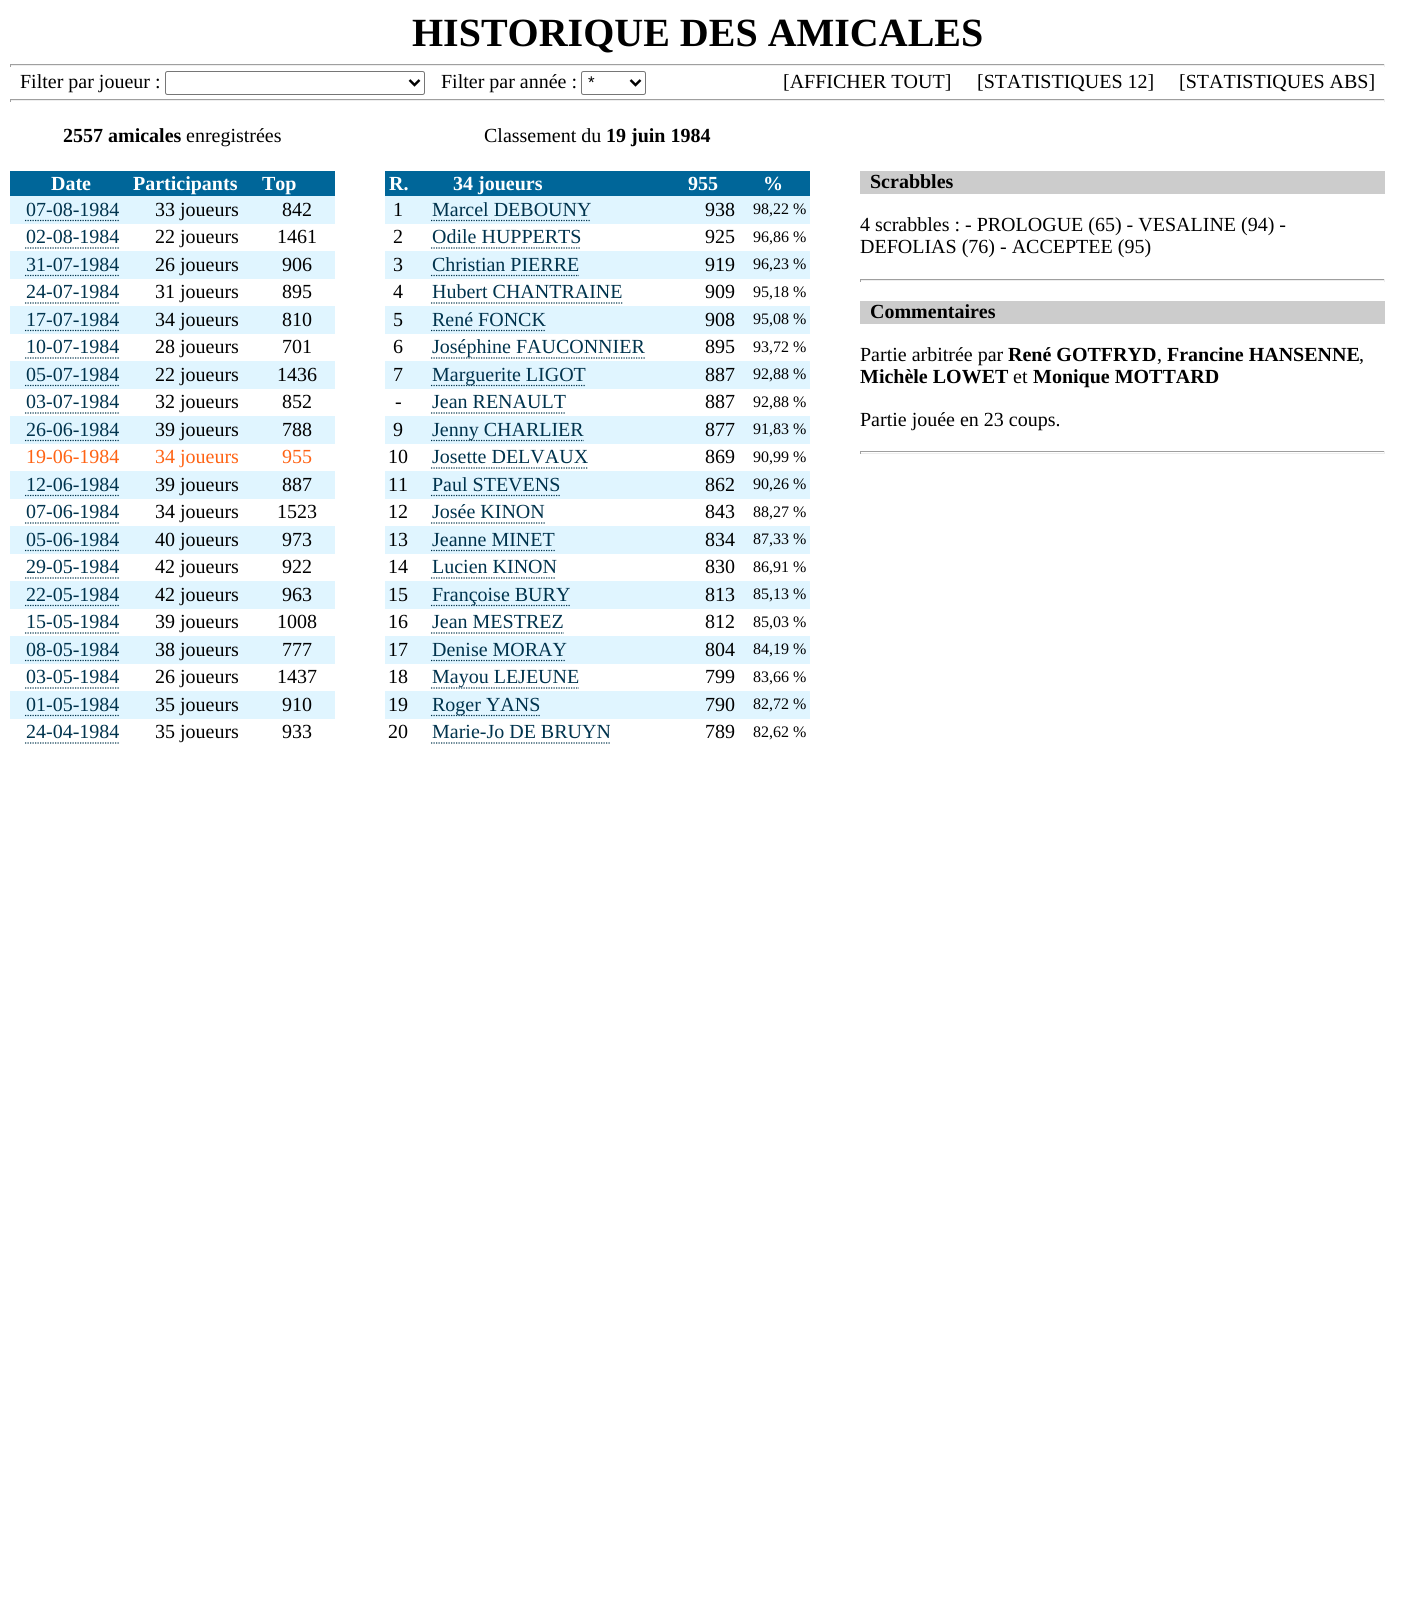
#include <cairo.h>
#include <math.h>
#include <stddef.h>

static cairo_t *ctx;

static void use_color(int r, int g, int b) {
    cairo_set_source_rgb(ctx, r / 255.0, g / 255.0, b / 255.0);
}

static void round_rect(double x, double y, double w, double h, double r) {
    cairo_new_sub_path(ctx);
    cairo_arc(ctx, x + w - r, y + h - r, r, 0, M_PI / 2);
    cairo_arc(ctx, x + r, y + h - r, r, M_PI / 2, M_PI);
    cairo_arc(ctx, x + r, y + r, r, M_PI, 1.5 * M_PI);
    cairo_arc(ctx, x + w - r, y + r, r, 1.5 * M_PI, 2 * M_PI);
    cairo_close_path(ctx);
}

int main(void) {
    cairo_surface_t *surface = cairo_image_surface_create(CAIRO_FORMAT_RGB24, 1409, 1607);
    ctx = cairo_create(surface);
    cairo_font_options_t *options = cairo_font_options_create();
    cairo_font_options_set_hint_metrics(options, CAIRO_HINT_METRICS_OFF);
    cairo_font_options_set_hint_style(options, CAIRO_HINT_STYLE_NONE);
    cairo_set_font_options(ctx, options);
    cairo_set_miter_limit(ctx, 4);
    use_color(255, 255, 255);
    cairo_paint(ctx);
    cairo_select_font_face(ctx, "Liberation Serif", CAIRO_FONT_SLANT_NORMAL, CAIRO_FONT_WEIGHT_BOLD);
    cairo_set_font_size(ctx, 40);
    use_color(0, 0, 0);
    cairo_move_to(ctx, 412, 46);
    cairo_show_text(ctx, "HISTORIQUE DES AMICALES");
    use_color(159, 159, 159);
    cairo_rectangle(ctx, 10, 64, 1375, 1);
    cairo_fill(ctx);
    use_color(238, 238, 238);
    cairo_rectangle(ctx, 1384, 64, 1, 3);
    cairo_fill(ctx);
    cairo_rectangle(ctx, 10, 65, 1375, 1);
    cairo_fill(ctx);
    use_color(159, 159, 159);
    cairo_rectangle(ctx, 10, 64, 1, 3);
    cairo_fill(ctx);
    cairo_select_font_face(ctx, "Liberation Serif", CAIRO_FONT_SLANT_NORMAL, CAIRO_FONT_WEIGHT_NORMAL);
    cairo_set_font_size(ctx, 20);
    use_color(0, 0, 0);
    cairo_move_to(ctx, 20, 88);
    cairo_show_text(ctx, "Filter par joueur :");
    round_rect(165.5, 71.5, 259, 23, 2);
    use_color(118, 118, 118);
    cairo_set_line_width(ctx, 1);
    cairo_stroke(ctx);
    cairo_new_path(ctx);
    cairo_move_to(ctx, 409.5, 80);
    cairo_line_to(ctx, 414.5, 85);
    cairo_line_to(ctx, 419.5, 80);
    use_color(0, 0, 0);
    cairo_set_line_width(ctx, 2.5);
    cairo_stroke(ctx);
    cairo_move_to(ctx, 441, 88);
    cairo_show_text(ctx, "Filter par année :");
    round_rect(581.5, 71.5, 64, 23, 2);
    use_color(118, 118, 118);
    cairo_set_line_width(ctx, 1);
    cairo_stroke(ctx);
    cairo_new_path(ctx);
    cairo_move_to(ctx, 630.5, 80);
    cairo_line_to(ctx, 635.5, 85);
    cairo_line_to(ctx, 640.5, 80);
    use_color(0, 0, 0);
    cairo_set_line_width(ctx, 2.5);
    cairo_stroke(ctx);
    cairo_select_font_face(ctx, "Liberation Sans", CAIRO_FONT_SLANT_NORMAL, CAIRO_FONT_WEIGHT_NORMAL);
    cairo_set_font_size(ctx, 17);
    cairo_move_to(ctx, 588, 88);
    cairo_show_text(ctx, "*");
    cairo_select_font_face(ctx, "Liberation Serif", CAIRO_FONT_SLANT_NORMAL, CAIRO_FONT_WEIGHT_NORMAL);
    cairo_set_font_size(ctx, 20);
    cairo_move_to(ctx, 783, 88);
    cairo_show_text(ctx, "[AFFICHER TOUT]");
    cairo_move_to(ctx, 977, 88);
    cairo_show_text(ctx, "[STATISTIQUES 12]");
    cairo_move_to(ctx, 1179, 88);
    cairo_show_text(ctx, "[STATISTIQUES ABS]");
    use_color(159, 159, 159);
    cairo_rectangle(ctx, 10, 99, 1375, 1);
    cairo_fill(ctx);
    use_color(238, 238, 238);
    cairo_rectangle(ctx, 1384, 99, 1, 3);
    cairo_fill(ctx);
    cairo_rectangle(ctx, 10, 100, 1375, 1);
    cairo_fill(ctx);
    use_color(159, 159, 159);
    cairo_rectangle(ctx, 10, 99, 1, 3);
    cairo_fill(ctx);
    cairo_select_font_face(ctx, "Liberation Serif", CAIRO_FONT_SLANT_NORMAL, CAIRO_FONT_WEIGHT_BOLD);
    use_color(0, 0, 0);
    cairo_move_to(ctx, 63, 142);
    cairo_show_text(ctx, "2557 amicales");
    cairo_select_font_face(ctx, "Liberation Serif", CAIRO_FONT_SLANT_NORMAL, CAIRO_FONT_WEIGHT_NORMAL);
    cairo_move_to(ctx, 186, 142);
    cairo_show_text(ctx, "enregistrées");
    use_color(0, 102, 153);
    cairo_rectangle(ctx, 10, 171, 325, 25);
    cairo_fill(ctx);
    cairo_select_font_face(ctx, "Liberation Serif", CAIRO_FONT_SLANT_NORMAL, CAIRO_FONT_WEIGHT_BOLD);
    use_color(255, 255, 255);
    cairo_move_to(ctx, 51, 190);
    cairo_show_text(ctx, "Date");
    cairo_move_to(ctx, 133, 190);
    cairo_show_text(ctx, "Participants");
    cairo_move_to(ctx, 262, 190);
    cairo_show_text(ctx, "Top");
    use_color(224, 245, 255);
    cairo_rectangle(ctx, 10, 196, 325, 28);
    cairo_fill(ctx);
    cairo_select_font_face(ctx, "Liberation Serif", CAIRO_FONT_SLANT_NORMAL, CAIRO_FONT_WEIGHT_NORMAL);
    use_color(0, 51, 77);
    cairo_move_to(ctx, 26, 216);
    cairo_show_text(ctx, "07-08-1984");
    cairo_new_path(ctx);
    cairo_move_to(ctx, 25, 220.5);
    cairo_line_to(ctx, 119, 220.5);
    cairo_set_line_width(ctx, 1.2);
    cairo_set_dash(ctx, (double[]){1.25, 1.25}, 2, 0);
    cairo_stroke(ctx);
    use_color(0, 0, 0);
    cairo_move_to(ctx, 155, 216);
    cairo_show_text(ctx, "33 joueurs");
    cairo_move_to(ctx, 282, 216);
    cairo_show_text(ctx, "842");
    use_color(0, 51, 77);
    cairo_move_to(ctx, 26, 243);
    cairo_show_text(ctx, "02-08-1984");
    cairo_new_path(ctx);
    cairo_move_to(ctx, 25, 248);
    cairo_line_to(ctx, 119, 248);
    cairo_stroke(ctx);
    use_color(0, 0, 0);
    cairo_move_to(ctx, 155, 243);
    cairo_show_text(ctx, "22 joueurs");
    cairo_move_to(ctx, 277, 243);
    cairo_show_text(ctx, "1461");
    use_color(224, 245, 255);
    cairo_rectangle(ctx, 10, 251, 325, 28);
    cairo_fill(ctx);
    use_color(0, 51, 77);
    cairo_move_to(ctx, 26, 271);
    cairo_show_text(ctx, "31-07-1984");
    cairo_new_path(ctx);
    cairo_move_to(ctx, 25, 275.5);
    cairo_line_to(ctx, 119, 275.5);
    cairo_stroke(ctx);
    use_color(0, 0, 0);
    cairo_move_to(ctx, 155, 271);
    cairo_show_text(ctx, "26 joueurs");
    cairo_move_to(ctx, 282, 271);
    cairo_show_text(ctx, "906");
    use_color(0, 51, 77);
    cairo_move_to(ctx, 26, 298);
    cairo_show_text(ctx, "24-07-1984");
    cairo_new_path(ctx);
    cairo_move_to(ctx, 25, 303);
    cairo_line_to(ctx, 119, 303);
    cairo_stroke(ctx);
    use_color(0, 0, 0);
    cairo_move_to(ctx, 155, 298);
    cairo_show_text(ctx, "31 joueurs");
    cairo_move_to(ctx, 282, 298);
    cairo_show_text(ctx, "895");
    use_color(224, 245, 255);
    cairo_rectangle(ctx, 10, 306, 325, 28);
    cairo_fill(ctx);
    use_color(0, 51, 77);
    cairo_move_to(ctx, 26, 326);
    cairo_show_text(ctx, "17-07-1984");
    cairo_new_path(ctx);
    cairo_move_to(ctx, 25, 330.5);
    cairo_line_to(ctx, 119, 330.5);
    cairo_stroke(ctx);
    use_color(0, 0, 0);
    cairo_move_to(ctx, 155, 326);
    cairo_show_text(ctx, "34 joueurs");
    cairo_move_to(ctx, 282, 326);
    cairo_show_text(ctx, "810");
    use_color(0, 51, 77);
    cairo_move_to(ctx, 26, 353);
    cairo_show_text(ctx, "10-07-1984");
    cairo_new_path(ctx);
    cairo_move_to(ctx, 25, 358);
    cairo_line_to(ctx, 119, 358);
    cairo_stroke(ctx);
    use_color(0, 0, 0);
    cairo_move_to(ctx, 155, 353);
    cairo_show_text(ctx, "28 joueurs");
    cairo_move_to(ctx, 282, 353);
    cairo_show_text(ctx, "701");
    use_color(224, 245, 255);
    cairo_rectangle(ctx, 10, 361, 325, 28);
    cairo_fill(ctx);
    use_color(0, 51, 77);
    cairo_move_to(ctx, 26, 381);
    cairo_show_text(ctx, "05-07-1984");
    cairo_new_path(ctx);
    cairo_move_to(ctx, 25, 385.5);
    cairo_line_to(ctx, 119, 385.5);
    cairo_stroke(ctx);
    use_color(0, 0, 0);
    cairo_move_to(ctx, 155, 381);
    cairo_show_text(ctx, "22 joueurs");
    cairo_move_to(ctx, 277, 381);
    cairo_show_text(ctx, "1436");
    use_color(0, 51, 77);
    cairo_move_to(ctx, 26, 408);
    cairo_show_text(ctx, "03-07-1984");
    cairo_new_path(ctx);
    cairo_move_to(ctx, 25, 413);
    cairo_line_to(ctx, 119, 413);
    cairo_stroke(ctx);
    use_color(0, 0, 0);
    cairo_move_to(ctx, 155, 408);
    cairo_show_text(ctx, "32 joueurs");
    cairo_move_to(ctx, 282, 408);
    cairo_show_text(ctx, "852");
    use_color(224, 245, 255);
    cairo_rectangle(ctx, 10, 416, 325, 28);
    cairo_fill(ctx);
    use_color(0, 51, 77);
    cairo_move_to(ctx, 26, 436);
    cairo_show_text(ctx, "26-06-1984");
    cairo_new_path(ctx);
    cairo_move_to(ctx, 25, 440.5);
    cairo_line_to(ctx, 119, 440.5);
    cairo_stroke(ctx);
    use_color(0, 0, 0);
    cairo_move_to(ctx, 155, 436);
    cairo_show_text(ctx, "39 joueurs");
    cairo_move_to(ctx, 282, 436);
    cairo_show_text(ctx, "788");
    use_color(255, 99, 20);
    cairo_move_to(ctx, 26, 463);
    cairo_show_text(ctx, "19-06-1984");
    cairo_move_to(ctx, 155, 463);
    cairo_show_text(ctx, "34 joueurs");
    cairo_move_to(ctx, 282, 463);
    cairo_show_text(ctx, "955");
    use_color(224, 245, 255);
    cairo_rectangle(ctx, 10, 471, 325, 28);
    cairo_fill(ctx);
    use_color(0, 51, 77);
    cairo_move_to(ctx, 26, 491);
    cairo_show_text(ctx, "12-06-1984");
    cairo_new_path(ctx);
    cairo_move_to(ctx, 25, 495.5);
    cairo_line_to(ctx, 119, 495.5);
    cairo_stroke(ctx);
    use_color(0, 0, 0);
    cairo_move_to(ctx, 155, 491);
    cairo_show_text(ctx, "39 joueurs");
    cairo_move_to(ctx, 282, 491);
    cairo_show_text(ctx, "887");
    use_color(0, 51, 77);
    cairo_move_to(ctx, 26, 518);
    cairo_show_text(ctx, "07-06-1984");
    cairo_new_path(ctx);
    cairo_move_to(ctx, 25, 523);
    cairo_line_to(ctx, 119, 523);
    cairo_stroke(ctx);
    use_color(0, 0, 0);
    cairo_move_to(ctx, 155, 518);
    cairo_show_text(ctx, "34 joueurs");
    cairo_move_to(ctx, 277, 518);
    cairo_show_text(ctx, "1523");
    use_color(224, 245, 255);
    cairo_rectangle(ctx, 10, 526, 325, 28);
    cairo_fill(ctx);
    use_color(0, 51, 77);
    cairo_move_to(ctx, 26, 546);
    cairo_show_text(ctx, "05-06-1984");
    cairo_new_path(ctx);
    cairo_move_to(ctx, 25, 550.5);
    cairo_line_to(ctx, 119, 550.5);
    cairo_stroke(ctx);
    use_color(0, 0, 0);
    cairo_move_to(ctx, 155, 546);
    cairo_show_text(ctx, "40 joueurs");
    cairo_move_to(ctx, 282, 546);
    cairo_show_text(ctx, "973");
    use_color(0, 51, 77);
    cairo_move_to(ctx, 26, 573);
    cairo_show_text(ctx, "29-05-1984");
    cairo_new_path(ctx);
    cairo_move_to(ctx, 25, 578);
    cairo_line_to(ctx, 119, 578);
    cairo_stroke(ctx);
    use_color(0, 0, 0);
    cairo_move_to(ctx, 155, 573);
    cairo_show_text(ctx, "42 joueurs");
    cairo_move_to(ctx, 282, 573);
    cairo_show_text(ctx, "922");
    use_color(224, 245, 255);
    cairo_rectangle(ctx, 10, 581, 325, 28);
    cairo_fill(ctx);
    use_color(0, 51, 77);
    cairo_move_to(ctx, 26, 601);
    cairo_show_text(ctx, "22-05-1984");
    cairo_new_path(ctx);
    cairo_move_to(ctx, 25, 605.5);
    cairo_line_to(ctx, 119, 605.5);
    cairo_stroke(ctx);
    use_color(0, 0, 0);
    cairo_move_to(ctx, 155, 601);
    cairo_show_text(ctx, "42 joueurs");
    cairo_move_to(ctx, 282, 601);
    cairo_show_text(ctx, "963");
    use_color(0, 51, 77);
    cairo_move_to(ctx, 26, 628);
    cairo_show_text(ctx, "15-05-1984");
    cairo_new_path(ctx);
    cairo_move_to(ctx, 25, 633);
    cairo_line_to(ctx, 119, 633);
    cairo_stroke(ctx);
    use_color(0, 0, 0);
    cairo_move_to(ctx, 155, 628);
    cairo_show_text(ctx, "39 joueurs");
    cairo_move_to(ctx, 277, 628);
    cairo_show_text(ctx, "1008");
    use_color(224, 245, 255);
    cairo_rectangle(ctx, 10, 636, 325, 28);
    cairo_fill(ctx);
    use_color(0, 51, 77);
    cairo_move_to(ctx, 26, 656);
    cairo_show_text(ctx, "08-05-1984");
    cairo_new_path(ctx);
    cairo_move_to(ctx, 25, 660.5);
    cairo_line_to(ctx, 119, 660.5);
    cairo_stroke(ctx);
    use_color(0, 0, 0);
    cairo_move_to(ctx, 155, 656);
    cairo_show_text(ctx, "38 joueurs");
    cairo_move_to(ctx, 282, 656);
    cairo_show_text(ctx, "777");
    use_color(0, 51, 77);
    cairo_move_to(ctx, 26, 683);
    cairo_show_text(ctx, "03-05-1984");
    cairo_new_path(ctx);
    cairo_move_to(ctx, 25, 688);
    cairo_line_to(ctx, 119, 688);
    cairo_stroke(ctx);
    use_color(0, 0, 0);
    cairo_move_to(ctx, 155, 683);
    cairo_show_text(ctx, "26 joueurs");
    cairo_move_to(ctx, 277, 683);
    cairo_show_text(ctx, "1437");
    use_color(224, 245, 255);
    cairo_rectangle(ctx, 10, 691, 325, 28);
    cairo_fill(ctx);
    use_color(0, 51, 77);
    cairo_move_to(ctx, 26, 711);
    cairo_show_text(ctx, "01-05-1984");
    cairo_new_path(ctx);
    cairo_move_to(ctx, 25, 715.5);
    cairo_line_to(ctx, 119, 715.5);
    cairo_stroke(ctx);
    use_color(0, 0, 0);
    cairo_move_to(ctx, 155, 711);
    cairo_show_text(ctx, "35 joueurs");
    cairo_move_to(ctx, 282, 711);
    cairo_show_text(ctx, "910");
    use_color(0, 51, 77);
    cairo_move_to(ctx, 26, 738);
    cairo_show_text(ctx, "24-04-1984");
    cairo_new_path(ctx);
    cairo_move_to(ctx, 25, 743);
    cairo_line_to(ctx, 119, 743);
    cairo_stroke(ctx);
    use_color(0, 0, 0);
    cairo_move_to(ctx, 155, 738);
    cairo_show_text(ctx, "35 joueurs");
    cairo_move_to(ctx, 282, 738);
    cairo_show_text(ctx, "933");
    cairo_move_to(ctx, 484, 142);
    cairo_show_text(ctx, "Classement du");
    cairo_select_font_face(ctx, "Liberation Serif", CAIRO_FONT_SLANT_NORMAL, CAIRO_FONT_WEIGHT_BOLD);
    cairo_move_to(ctx, 606, 142);
    cairo_show_text(ctx, "19 juin 1984");
    use_color(0, 102, 153);
    cairo_rectangle(ctx, 385, 171, 425, 25);
    cairo_fill(ctx);
    use_color(255, 255, 255);
    cairo_move_to(ctx, 389, 190);
    cairo_show_text(ctx, "R.");
    cairo_move_to(ctx, 453, 190);
    cairo_show_text(ctx, "34 joueurs");
    cairo_move_to(ctx, 688, 190);
    cairo_show_text(ctx, "955");
    cairo_move_to(ctx, 763, 190);
    cairo_show_text(ctx, "%");
    use_color(224, 245, 255);
    cairo_rectangle(ctx, 385, 196, 425, 28);
    cairo_fill(ctx);
    cairo_select_font_face(ctx, "Liberation Serif", CAIRO_FONT_SLANT_NORMAL, CAIRO_FONT_WEIGHT_NORMAL);
    use_color(0, 0, 0);
    cairo_move_to(ctx, 393, 216);
    cairo_show_text(ctx, "1");
    use_color(0, 51, 77);
    cairo_move_to(ctx, 432, 216);
    cairo_show_text(ctx, "Marcel DEBOUNY");
    cairo_new_path(ctx);
    cairo_move_to(ctx, 431, 220.5);
    cairo_line_to(ctx, 591, 220.5);
    cairo_stroke(ctx);
    use_color(0, 0, 0);
    cairo_move_to(ctx, 705, 216);
    cairo_show_text(ctx, "938");
    cairo_set_font_size(ctx, 16);
    cairo_move_to(ctx, 753, 214);
    cairo_show_text(ctx, "98,22 %");
    cairo_set_font_size(ctx, 20);
    cairo_move_to(ctx, 393, 243);
    cairo_show_text(ctx, "2");
    use_color(0, 51, 77);
    cairo_move_to(ctx, 432, 243);
    cairo_show_text(ctx, "Odile HUPPERTS");
    cairo_new_path(ctx);
    cairo_move_to(ctx, 431, 248);
    cairo_line_to(ctx, 581, 248);
    cairo_stroke(ctx);
    use_color(0, 0, 0);
    cairo_move_to(ctx, 705, 243);
    cairo_show_text(ctx, "925");
    cairo_set_font_size(ctx, 16);
    cairo_move_to(ctx, 753, 242);
    cairo_show_text(ctx, "96,86 %");
    use_color(224, 245, 255);
    cairo_rectangle(ctx, 385, 251, 425, 28);
    cairo_fill(ctx);
    cairo_set_font_size(ctx, 20);
    use_color(0, 0, 0);
    cairo_move_to(ctx, 393, 271);
    cairo_show_text(ctx, "3");
    use_color(0, 51, 77);
    cairo_move_to(ctx, 432, 271);
    cairo_show_text(ctx, "Christian PIERRE");
    cairo_new_path(ctx);
    cairo_move_to(ctx, 431, 275.5);
    cairo_line_to(ctx, 579, 275.5);
    cairo_stroke(ctx);
    use_color(0, 0, 0);
    cairo_move_to(ctx, 705, 271);
    cairo_show_text(ctx, "919");
    cairo_set_font_size(ctx, 16);
    cairo_move_to(ctx, 753, 269);
    cairo_show_text(ctx, "96,23 %");
    cairo_set_font_size(ctx, 20);
    cairo_move_to(ctx, 393, 298);
    cairo_show_text(ctx, "4");
    use_color(0, 51, 77);
    cairo_move_to(ctx, 432, 298);
    cairo_show_text(ctx, "Hubert CHANTRAINE");
    cairo_new_path(ctx);
    cairo_move_to(ctx, 431, 303);
    cairo_line_to(ctx, 622.5, 303);
    cairo_stroke(ctx);
    use_color(0, 0, 0);
    cairo_move_to(ctx, 705, 298);
    cairo_show_text(ctx, "909");
    cairo_set_font_size(ctx, 16);
    cairo_move_to(ctx, 753, 297);
    cairo_show_text(ctx, "95,18 %");
    use_color(224, 245, 255);
    cairo_rectangle(ctx, 385, 306, 425, 28);
    cairo_fill(ctx);
    cairo_set_font_size(ctx, 20);
    use_color(0, 0, 0);
    cairo_move_to(ctx, 393, 326);
    cairo_show_text(ctx, "5");
    use_color(0, 51, 77);
    cairo_move_to(ctx, 432, 326);
    cairo_show_text(ctx, "René FONCK");
    cairo_new_path(ctx);
    cairo_move_to(ctx, 431, 330.5);
    cairo_line_to(ctx, 546, 330.5);
    cairo_stroke(ctx);
    use_color(0, 0, 0);
    cairo_move_to(ctx, 705, 326);
    cairo_show_text(ctx, "908");
    cairo_set_font_size(ctx, 16);
    cairo_move_to(ctx, 753, 324);
    cairo_show_text(ctx, "95,08 %");
    cairo_set_font_size(ctx, 20);
    cairo_move_to(ctx, 393, 353);
    cairo_show_text(ctx, "6");
    cairo_new_path(ctx);
    cairo_move_to(ctx, 431, 358);
    cairo_line_to(ctx, 645, 358);
    use_color(0, 51, 77);
    cairo_stroke(ctx);
    cairo_move_to(ctx, 432, 353);
    cairo_show_text(ctx, "Joséphine FAUCONNIER");
    use_color(0, 0, 0);
    cairo_move_to(ctx, 705, 353);
    cairo_show_text(ctx, "895");
    cairo_set_font_size(ctx, 16);
    cairo_move_to(ctx, 753, 352);
    cairo_show_text(ctx, "93,72 %");
    use_color(224, 245, 255);
    cairo_rectangle(ctx, 385, 361, 425, 28);
    cairo_fill(ctx);
    cairo_set_font_size(ctx, 20);
    use_color(0, 0, 0);
    cairo_move_to(ctx, 393, 381);
    cairo_show_text(ctx, "7");
    cairo_new_path(ctx);
    cairo_move_to(ctx, 431, 385.5);
    cairo_line_to(ctx, 585, 385.5);
    use_color(0, 51, 77);
    cairo_stroke(ctx);
    cairo_move_to(ctx, 432, 381);
    cairo_show_text(ctx, "Marguerite LIGOT");
    use_color(0, 0, 0);
    cairo_move_to(ctx, 705, 381);
    cairo_show_text(ctx, "887");
    cairo_set_font_size(ctx, 16);
    cairo_move_to(ctx, 753, 379);
    cairo_show_text(ctx, "92,88 %");
    cairo_set_font_size(ctx, 20);
    cairo_move_to(ctx, 395, 408);
    cairo_show_text(ctx, "-");
    use_color(0, 51, 77);
    cairo_move_to(ctx, 432, 408);
    cairo_show_text(ctx, "Jean RENAULT");
    cairo_new_path(ctx);
    cairo_move_to(ctx, 431, 413);
    cairo_line_to(ctx, 566, 413);
    cairo_stroke(ctx);
    use_color(0, 0, 0);
    cairo_move_to(ctx, 705, 408);
    cairo_show_text(ctx, "887");
    cairo_set_font_size(ctx, 16);
    cairo_move_to(ctx, 753, 407);
    cairo_show_text(ctx, "92,88 %");
    use_color(224, 245, 255);
    cairo_rectangle(ctx, 385, 416, 425, 28);
    cairo_fill(ctx);
    cairo_set_font_size(ctx, 20);
    use_color(0, 0, 0);
    cairo_move_to(ctx, 393, 436);
    cairo_show_text(ctx, "9");
    cairo_new_path(ctx);
    cairo_move_to(ctx, 431, 440.5);
    cairo_line_to(ctx, 584, 440.5);
    use_color(0, 51, 77);
    cairo_stroke(ctx);
    cairo_move_to(ctx, 432, 436);
    cairo_show_text(ctx, "Jenny CHARLIER");
    use_color(0, 0, 0);
    cairo_move_to(ctx, 705, 436);
    cairo_show_text(ctx, "877");
    cairo_set_font_size(ctx, 16);
    cairo_move_to(ctx, 753, 434);
    cairo_show_text(ctx, "91,83 %");
    cairo_set_font_size(ctx, 20);
    cairo_move_to(ctx, 388, 463);
    cairo_show_text(ctx, "10");
    use_color(0, 51, 77);
    cairo_move_to(ctx, 432, 463);
    cairo_show_text(ctx, "Josette DELVAUX");
    cairo_new_path(ctx);
    cairo_move_to(ctx, 431, 468);
    cairo_line_to(ctx, 587.5, 468);
    cairo_stroke(ctx);
    use_color(0, 0, 0);
    cairo_move_to(ctx, 705, 463);
    cairo_show_text(ctx, "869");
    cairo_set_font_size(ctx, 16);
    cairo_move_to(ctx, 753, 462);
    cairo_show_text(ctx, "90,99 %");
    use_color(224, 245, 255);
    cairo_rectangle(ctx, 385, 471, 425, 28);
    cairo_fill(ctx);
    cairo_set_font_size(ctx, 20);
    use_color(0, 0, 0);
    cairo_move_to(ctx, 388, 491);
    cairo_show_text(ctx, "11");
    use_color(0, 51, 77);
    cairo_move_to(ctx, 432, 491);
    cairo_show_text(ctx, "Paul STEVENS");
    cairo_new_path(ctx);
    cairo_move_to(ctx, 431, 495.5);
    cairo_line_to(ctx, 560, 495.5);
    cairo_stroke(ctx);
    use_color(0, 0, 0);
    cairo_move_to(ctx, 705, 491);
    cairo_show_text(ctx, "862");
    cairo_set_font_size(ctx, 16);
    cairo_move_to(ctx, 753, 489);
    cairo_show_text(ctx, "90,26 %");
    cairo_set_font_size(ctx, 20);
    cairo_move_to(ctx, 388, 518);
    cairo_show_text(ctx, "12");
    use_color(0, 51, 77);
    cairo_move_to(ctx, 432, 518);
    cairo_show_text(ctx, "Josée KINON");
    cairo_new_path(ctx);
    cairo_move_to(ctx, 431, 523);
    cairo_line_to(ctx, 545, 523);
    cairo_stroke(ctx);
    use_color(0, 0, 0);
    cairo_move_to(ctx, 705, 518);
    cairo_show_text(ctx, "843");
    cairo_set_font_size(ctx, 16);
    cairo_move_to(ctx, 753, 517);
    cairo_show_text(ctx, "88,27 %");
    use_color(224, 245, 255);
    cairo_rectangle(ctx, 385, 526, 425, 28);
    cairo_fill(ctx);
    cairo_set_font_size(ctx, 20);
    use_color(0, 0, 0);
    cairo_move_to(ctx, 388, 546);
    cairo_show_text(ctx, "13");
    use_color(0, 51, 77);
    cairo_move_to(ctx, 432, 546);
    cairo_show_text(ctx, "Jeanne MINET");
    cairo_new_path(ctx);
    cairo_move_to(ctx, 431, 550.5);
    cairo_line_to(ctx, 555, 550.5);
    cairo_stroke(ctx);
    use_color(0, 0, 0);
    cairo_move_to(ctx, 705, 546);
    cairo_show_text(ctx, "834");
    cairo_set_font_size(ctx, 16);
    cairo_move_to(ctx, 753, 544);
    cairo_show_text(ctx, "87,33 %");
    cairo_set_font_size(ctx, 20);
    cairo_move_to(ctx, 388, 573);
    cairo_show_text(ctx, "14");
    use_color(0, 51, 77);
    cairo_move_to(ctx, 432, 573);
    cairo_show_text(ctx, "Lucien KINON");
    cairo_new_path(ctx);
    cairo_move_to(ctx, 431, 578);
    cairo_line_to(ctx, 556, 578);
    cairo_stroke(ctx);
    use_color(0, 0, 0);
    cairo_move_to(ctx, 705, 573);
    cairo_show_text(ctx, "830");
    cairo_set_font_size(ctx, 16);
    cairo_move_to(ctx, 753, 572);
    cairo_show_text(ctx, "86,91 %");
    use_color(224, 245, 255);
    cairo_rectangle(ctx, 385, 581, 425, 28);
    cairo_fill(ctx);
    cairo_set_font_size(ctx, 20);
    use_color(0, 0, 0);
    cairo_move_to(ctx, 388, 601);
    cairo_show_text(ctx, "15");
    cairo_new_path(ctx);
    cairo_move_to(ctx, 431, 605.5);
    cairo_line_to(ctx, 570, 605.5);
    use_color(0, 51, 77);
    cairo_stroke(ctx);
    cairo_move_to(ctx, 432, 601);
    cairo_show_text(ctx, "Françoise BURY");
    use_color(0, 0, 0);
    cairo_move_to(ctx, 705, 601);
    cairo_show_text(ctx, "813");
    cairo_set_font_size(ctx, 16);
    cairo_move_to(ctx, 753, 599);
    cairo_show_text(ctx, "85,13 %");
    cairo_set_font_size(ctx, 20);
    cairo_move_to(ctx, 388, 628);
    cairo_show_text(ctx, "16");
    use_color(0, 51, 77);
    cairo_move_to(ctx, 432, 628);
    cairo_show_text(ctx, "Jean MESTREZ");
    cairo_new_path(ctx);
    cairo_move_to(ctx, 431, 633);
    cairo_line_to(ctx, 564, 633);
    cairo_stroke(ctx);
    use_color(0, 0, 0);
    cairo_move_to(ctx, 705, 628);
    cairo_show_text(ctx, "812");
    cairo_set_font_size(ctx, 16);
    cairo_move_to(ctx, 753, 627);
    cairo_show_text(ctx, "85,03 %");
    use_color(224, 245, 255);
    cairo_rectangle(ctx, 385, 636, 425, 28);
    cairo_fill(ctx);
    cairo_set_font_size(ctx, 20);
    use_color(0, 0, 0);
    cairo_move_to(ctx, 388, 656);
    cairo_show_text(ctx, "17");
    use_color(0, 51, 77);
    cairo_move_to(ctx, 432, 656);
    cairo_show_text(ctx, "Denise MORAY");
    cairo_new_path(ctx);
    cairo_move_to(ctx, 431, 660.5);
    cairo_line_to(ctx, 566, 660.5);
    cairo_stroke(ctx);
    use_color(0, 0, 0);
    cairo_move_to(ctx, 705, 656);
    cairo_show_text(ctx, "804");
    cairo_set_font_size(ctx, 16);
    cairo_move_to(ctx, 753, 654);
    cairo_show_text(ctx, "84,19 %");
    cairo_set_font_size(ctx, 20);
    cairo_move_to(ctx, 388, 683);
    cairo_show_text(ctx, "18");
    cairo_new_path(ctx);
    cairo_move_to(ctx, 431, 688);
    cairo_line_to(ctx, 579, 688);
    use_color(0, 51, 77);
    cairo_stroke(ctx);
    cairo_move_to(ctx, 432, 683);
    cairo_show_text(ctx, "Mayou LEJEUNE");
    use_color(0, 0, 0);
    cairo_move_to(ctx, 705, 683);
    cairo_show_text(ctx, "799");
    cairo_set_font_size(ctx, 16);
    cairo_move_to(ctx, 753, 682);
    cairo_show_text(ctx, "83,66 %");
    use_color(224, 245, 255);
    cairo_rectangle(ctx, 385, 691, 425, 28);
    cairo_fill(ctx);
    cairo_set_font_size(ctx, 20);
    use_color(0, 0, 0);
    cairo_move_to(ctx, 388, 711);
    cairo_show_text(ctx, "19");
    cairo_new_path(ctx);
    cairo_move_to(ctx, 431, 715.5);
    cairo_line_to(ctx, 540, 715.5);
    use_color(0, 51, 77);
    cairo_stroke(ctx);
    cairo_move_to(ctx, 432, 711);
    cairo_show_text(ctx, "Roger YANS");
    use_color(0, 0, 0);
    cairo_move_to(ctx, 705, 711);
    cairo_show_text(ctx, "790");
    cairo_set_font_size(ctx, 16);
    cairo_move_to(ctx, 753, 709);
    cairo_show_text(ctx, "82,72 %");
    cairo_set_font_size(ctx, 20);
    cairo_move_to(ctx, 388, 738);
    cairo_show_text(ctx, "20");
    use_color(0, 51, 77);
    cairo_move_to(ctx, 432, 738);
    cairo_show_text(ctx, "Marie-Jo DE BRUYN");
    cairo_new_path(ctx);
    cairo_move_to(ctx, 431, 743);
    cairo_line_to(ctx, 611, 743);
    cairo_stroke(ctx);
    use_color(0, 0, 0);
    cairo_move_to(ctx, 705, 738);
    cairo_show_text(ctx, "789");
    cairo_set_font_size(ctx, 16);
    cairo_move_to(ctx, 753, 737);
    cairo_show_text(ctx, "82,62 %");
    use_color(204, 204, 204);
    cairo_rectangle(ctx, 860, 171, 525, 23);
    cairo_fill(ctx);
    cairo_select_font_face(ctx, "Liberation Serif", CAIRO_FONT_SLANT_NORMAL, CAIRO_FONT_WEIGHT_BOLD);
    cairo_set_font_size(ctx, 20);
    use_color(0, 0, 0);
    cairo_move_to(ctx, 870, 188);
    cairo_show_text(ctx, "Scrabbles");
    cairo_select_font_face(ctx, "Liberation Serif", CAIRO_FONT_SLANT_NORMAL, CAIRO_FONT_WEIGHT_NORMAL);
    cairo_move_to(ctx, 860, 231);
    cairo_show_text(ctx, "4 scrabbles : - PROLOGUE (65) - VESALINE (94) -");
    cairo_move_to(ctx, 860, 253);
    cairo_show_text(ctx, "DEFOLIAS (76) - ACCEPTEE (95)");
    use_color(159, 159, 159);
    cairo_rectangle(ctx, 860, 279, 525, 1);
    cairo_fill(ctx);
    use_color(238, 238, 238);
    cairo_rectangle(ctx, 1384, 279, 1, 3);
    cairo_fill(ctx);
    cairo_rectangle(ctx, 860, 280, 525, 1);
    cairo_fill(ctx);
    use_color(159, 159, 159);
    cairo_rectangle(ctx, 860, 279, 1, 3);
    cairo_fill(ctx);
    use_color(204, 204, 204);
    cairo_rectangle(ctx, 860, 301, 525, 23);
    cairo_fill(ctx);
    cairo_select_font_face(ctx, "Liberation Serif", CAIRO_FONT_SLANT_NORMAL, CAIRO_FONT_WEIGHT_BOLD);
    use_color(0, 0, 0);
    cairo_move_to(ctx, 870, 318);
    cairo_show_text(ctx, "Commentaires");
    cairo_select_font_face(ctx, "Liberation Serif", CAIRO_FONT_SLANT_NORMAL, CAIRO_FONT_WEIGHT_NORMAL);
    cairo_move_to(ctx, 860, 361);
    cairo_show_text(ctx, "Partie arbitrée par");
    cairo_select_font_face(ctx, "Liberation Serif", CAIRO_FONT_SLANT_NORMAL, CAIRO_FONT_WEIGHT_BOLD);
    cairo_move_to(ctx, 1008, 361);
    cairo_show_text(ctx, "René GOTFRYD");
    cairo_select_font_face(ctx, "Liberation Serif", CAIRO_FONT_SLANT_NORMAL, CAIRO_FONT_WEIGHT_NORMAL);
    cairo_move_to(ctx, 1157, 361);
    cairo_show_text(ctx, ",");
    cairo_select_font_face(ctx, "Liberation Serif", CAIRO_FONT_SLANT_NORMAL, CAIRO_FONT_WEIGHT_BOLD);
    cairo_move_to(ctx, 1167, 361);
    cairo_show_text(ctx, "Francine HANSENNE");
    cairo_select_font_face(ctx, "Liberation Serif", CAIRO_FONT_SLANT_NORMAL, CAIRO_FONT_WEIGHT_NORMAL);
    cairo_move_to(ctx, 1359, 361);
    cairo_show_text(ctx, ",");
    cairo_select_font_face(ctx, "Liberation Serif", CAIRO_FONT_SLANT_NORMAL, CAIRO_FONT_WEIGHT_BOLD);
    cairo_move_to(ctx, 860, 383);
    cairo_show_text(ctx, "Michèle LOWET");
    cairo_select_font_face(ctx, "Liberation Serif", CAIRO_FONT_SLANT_NORMAL, CAIRO_FONT_WEIGHT_NORMAL);
    cairo_move_to(ctx, 1013, 383);
    cairo_show_text(ctx, "et");
    cairo_select_font_face(ctx, "Liberation Serif", CAIRO_FONT_SLANT_NORMAL, CAIRO_FONT_WEIGHT_BOLD);
    cairo_move_to(ctx, 1033, 383);
    cairo_show_text(ctx, "Monique MOTTARD");
    cairo_select_font_face(ctx, "Liberation Serif", CAIRO_FONT_SLANT_NORMAL, CAIRO_FONT_WEIGHT_NORMAL);
    cairo_move_to(ctx, 860, 426);
    cairo_show_text(ctx, "Partie jouée en 23 coups.");
    use_color(159, 159, 159);
    cairo_rectangle(ctx, 860, 451, 525, 1);
    cairo_fill(ctx);
    use_color(238, 238, 238);
    cairo_rectangle(ctx, 1384, 451, 1, 3);
    cairo_fill(ctx);
    cairo_rectangle(ctx, 860, 453, 525, 1);
    cairo_fill(ctx);
    use_color(159, 159, 159);
    cairo_rectangle(ctx, 860, 451, 1, 3);
    cairo_fill(ctx);
    cairo_surface_write_to_png(surface, "result.png");
    cairo_font_options_destroy(options);
    cairo_destroy(ctx);
    cairo_surface_destroy(surface);
    return 0;
}
